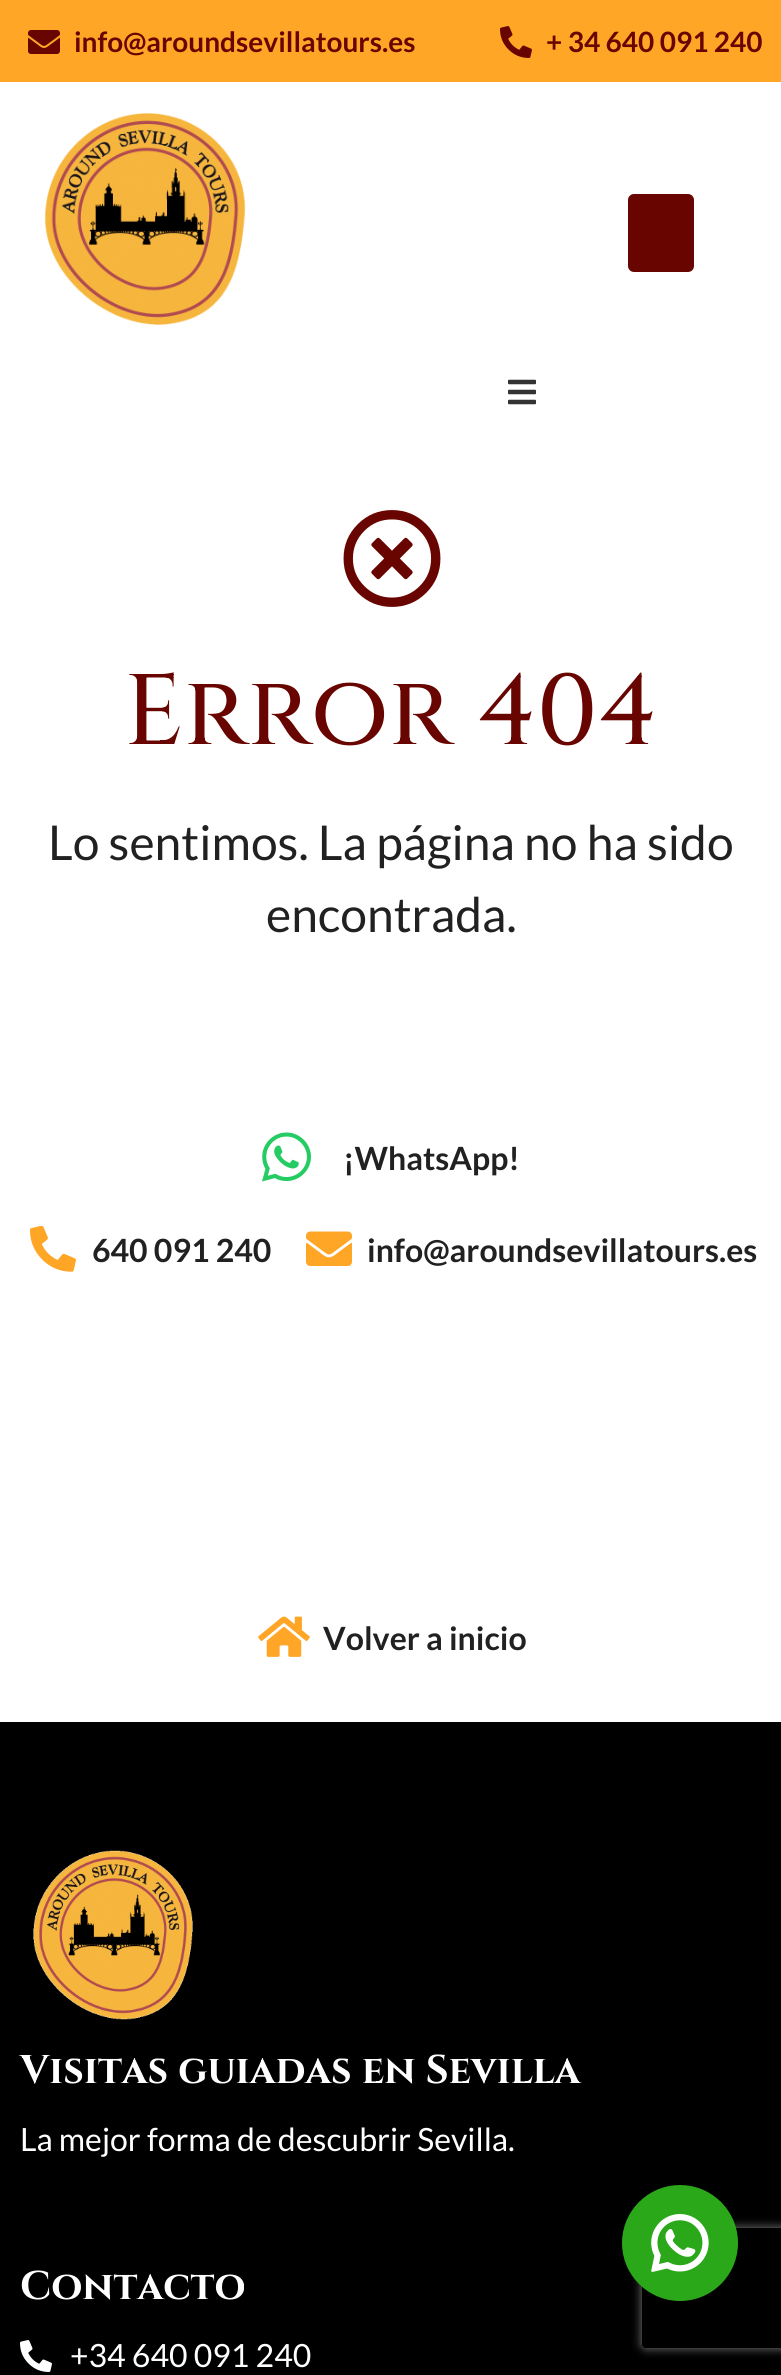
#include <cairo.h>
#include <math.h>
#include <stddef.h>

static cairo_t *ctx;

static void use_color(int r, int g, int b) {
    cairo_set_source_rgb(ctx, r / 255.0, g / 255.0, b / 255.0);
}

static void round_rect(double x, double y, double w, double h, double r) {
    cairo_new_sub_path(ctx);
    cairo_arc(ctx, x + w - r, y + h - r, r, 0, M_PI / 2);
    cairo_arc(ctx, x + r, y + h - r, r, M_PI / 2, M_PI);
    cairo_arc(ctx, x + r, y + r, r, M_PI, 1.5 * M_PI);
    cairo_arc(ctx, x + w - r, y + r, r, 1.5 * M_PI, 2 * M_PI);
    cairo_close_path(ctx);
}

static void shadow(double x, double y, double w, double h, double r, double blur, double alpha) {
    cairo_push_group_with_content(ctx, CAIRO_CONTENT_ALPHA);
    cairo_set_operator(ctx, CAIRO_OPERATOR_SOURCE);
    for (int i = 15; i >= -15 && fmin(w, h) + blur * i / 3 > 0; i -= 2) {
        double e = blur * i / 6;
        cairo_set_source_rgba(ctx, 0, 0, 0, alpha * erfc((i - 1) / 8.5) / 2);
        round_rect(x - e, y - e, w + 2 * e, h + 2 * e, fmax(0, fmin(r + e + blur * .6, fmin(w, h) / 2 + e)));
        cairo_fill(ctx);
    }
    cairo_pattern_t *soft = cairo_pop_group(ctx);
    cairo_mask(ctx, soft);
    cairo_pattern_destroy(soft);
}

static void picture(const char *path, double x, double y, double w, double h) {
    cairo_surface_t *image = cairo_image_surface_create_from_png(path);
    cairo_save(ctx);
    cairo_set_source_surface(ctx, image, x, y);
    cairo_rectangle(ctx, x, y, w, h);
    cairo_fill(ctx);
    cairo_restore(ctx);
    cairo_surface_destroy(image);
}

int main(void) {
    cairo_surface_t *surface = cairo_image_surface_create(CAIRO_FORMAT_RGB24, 781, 2375);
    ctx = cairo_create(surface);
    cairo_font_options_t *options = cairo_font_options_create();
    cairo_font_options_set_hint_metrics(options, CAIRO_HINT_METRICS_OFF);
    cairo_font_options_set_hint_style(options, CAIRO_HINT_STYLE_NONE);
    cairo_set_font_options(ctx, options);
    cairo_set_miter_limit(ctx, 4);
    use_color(255, 255, 255);
    cairo_paint(ctx);
    use_color(255, 166, 38);
    cairo_rectangle(ctx, 0, 0, 781, 82);
    cairo_fill(ctx);
    picture("img1.png", 28, 30, 32, 24);
    cairo_select_font_face(ctx, "Lato", CAIRO_FONT_SLANT_NORMAL, CAIRO_FONT_WEIGHT_BOLD);
    cairo_set_font_size(ctx, 28);
    use_color(105, 5, 0);
    cairo_move_to(ctx, 74, 52);
    cairo_show_text(ctx, "info@aroundsevillatours.es");
    picture("img2.png", 500, 26, 32, 32);
    cairo_move_to(ctx, 546, 52);
    cairo_show_text(ctx, "+ 34 640 091 240");
    picture("img3.png", 44, 113, 202, 212);
    round_rect(628, 194, 66, 78, 6);
    cairo_fill(ctx);
    picture("img4.png", 508, 379, 28, 26);
    picture("img5.png", 343, 510, 98, 97);
    cairo_select_font_face(ctx, "Cinzel Medium", CAIRO_FONT_SLANT_NORMAL, CAIRO_FONT_WEIGHT_NORMAL);
    cairo_set_font_size(ctx, 100);
    cairo_move_to(ctx, 124, 744);
    cairo_show_text(ctx, "Error 404");
    cairo_select_font_face(ctx, "Lato", CAIRO_FONT_SLANT_NORMAL, CAIRO_FONT_WEIGHT_NORMAL);
    cairo_set_font_size(ctx, 48);
    use_color(33, 33, 33);
    cairo_move_to(ctx, 48, 860);
    cairo_show_text(ctx, "Lo sentimos. La página no ha sido");
    cairo_move_to(ctx, 266, 932);
    cairo_show_text(ctx, "encontrada.");
    picture("img6.png", 262, 1132, 49, 50);
    cairo_select_font_face(ctx, "Lato", CAIRO_FONT_SLANT_NORMAL, CAIRO_FONT_WEIGHT_BOLD);
    cairo_set_font_size(ctx, 32);
    cairo_move_to(ctx, 343, 1170);
    cairo_show_text(ctx, "¡WhatsApp!");
    picture("img7.png", 30, 1226, 46, 46);
    cairo_move_to(ctx, 92, 1262);
    cairo_show_text(ctx, "640 091 240");
    picture("img8.png", 306, 1231, 46, 35);
    cairo_move_to(ctx, 367, 1262);
    cairo_show_text(ctx, "info@aroundsevillatours.es");
    picture("img9.png", 258, 1616, 52, 41);
    cairo_move_to(ctx, 323, 1650);
    cairo_show_text(ctx, "Volver a inicio");
    use_color(0, 0, 0);
    cairo_rectangle(ctx, 0, 1722, 781, 653);
    cairo_fill(ctx);
    picture("img10.png", 33, 1850, 160, 170);
    cairo_select_font_face(ctx, "Cinzel", CAIRO_FONT_SLANT_NORMAL, CAIRO_FONT_WEIGHT_BOLD);
    cairo_set_font_size(ctx, 40);
    use_color(255, 255, 255);
    cairo_move_to(ctx, 20, 2083);
    cairo_show_text(ctx, "Visitas guiadas en Sevilla");
    cairo_select_font_face(ctx, "Lato", CAIRO_FONT_SLANT_NORMAL, CAIRO_FONT_WEIGHT_NORMAL);
    cairo_set_font_size(ctx, 32);
    cairo_move_to(ctx, 20, 2151);
    cairo_show_text(ctx, "La mejor forma de descubrir Sevilla.");
    cairo_select_font_face(ctx, "Cinzel", CAIRO_FONT_SLANT_NORMAL, CAIRO_FONT_WEIGHT_BOLD);
    cairo_set_font_size(ctx, 40);
    cairo_move_to(ctx, 20, 2299);
    cairo_show_text(ctx, "Contacto");
    picture("img11.png", 20, 2340, 32, 32);
    cairo_select_font_face(ctx, "Lato", CAIRO_FONT_SLANT_NORMAL, CAIRO_FONT_WEIGHT_NORMAL);
    cairo_set_font_size(ctx, 32);
    cairo_move_to(ctx, 70, 2367);
    cairo_show_text(ctx, "+34 640 091 240");
    cairo_save(ctx);
    cairo_set_fill_rule(ctx, CAIRO_FILL_RULE_EVEN_ODD);
    cairo_new_path(ctx);
    cairo_move_to(ctx, 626, 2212);
    cairo_line_to(ctx, 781, 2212);
    cairo_line_to(ctx, 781, 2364);
    cairo_line_to(ctx, 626, 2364);
    cairo_close_path(ctx);
    cairo_move_to(ctx, 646, 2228);
    cairo_line_to(ctx, 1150, 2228);
    cairo_curve_to(ctx, 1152, 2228, 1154, 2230, 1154, 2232);
    cairo_line_to(ctx, 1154, 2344);
    cairo_curve_to(ctx, 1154, 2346, 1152, 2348, 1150, 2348);
    cairo_line_to(ctx, 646, 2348);
    cairo_curve_to(ctx, 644, 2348, 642, 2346, 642, 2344);
    cairo_line_to(ctx, 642, 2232);
    cairo_curve_to(ctx, 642, 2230, 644, 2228, 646, 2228);
    cairo_close_path(ctx);
    cairo_clip(ctx);
    use_color(128, 128, 128);
    shadow(642, 2228, 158, 120, 4, 5, 1);
    cairo_restore(ctx);
    picture("img12.png", 622, 2185, 116, 116);
    cairo_surface_write_to_png(surface, "result.png");
    cairo_font_options_destroy(options);
    cairo_destroy(ctx);
    cairo_surface_destroy(surface);
    return 0;
}
